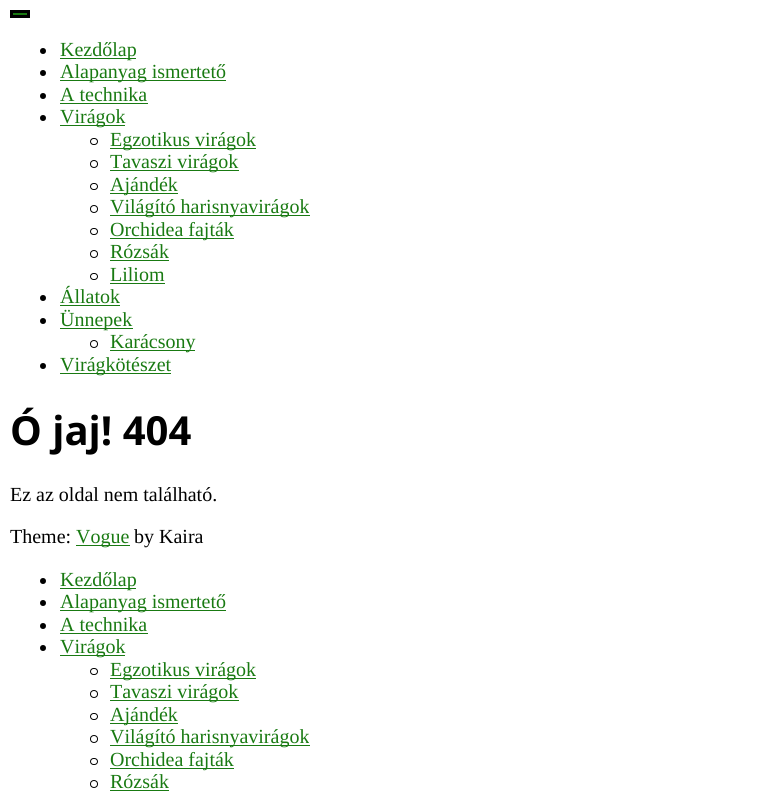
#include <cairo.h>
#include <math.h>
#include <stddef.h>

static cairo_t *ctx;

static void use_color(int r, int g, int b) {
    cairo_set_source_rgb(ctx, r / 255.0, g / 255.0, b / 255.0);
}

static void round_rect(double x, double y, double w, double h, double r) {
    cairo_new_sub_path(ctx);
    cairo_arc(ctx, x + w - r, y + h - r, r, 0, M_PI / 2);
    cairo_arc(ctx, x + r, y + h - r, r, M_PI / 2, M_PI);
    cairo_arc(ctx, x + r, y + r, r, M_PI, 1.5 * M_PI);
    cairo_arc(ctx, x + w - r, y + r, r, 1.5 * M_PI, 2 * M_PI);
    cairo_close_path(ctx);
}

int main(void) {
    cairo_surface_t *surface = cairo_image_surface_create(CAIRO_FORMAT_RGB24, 781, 794);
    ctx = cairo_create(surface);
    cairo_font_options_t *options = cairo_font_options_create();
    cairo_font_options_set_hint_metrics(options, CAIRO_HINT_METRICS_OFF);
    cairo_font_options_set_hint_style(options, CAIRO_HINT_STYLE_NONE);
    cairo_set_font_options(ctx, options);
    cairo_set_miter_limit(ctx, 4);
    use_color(255, 255, 255);
    cairo_paint(ctx);
    use_color(25, 122, 18);
    cairo_rectangle(ctx, 11.5, 11.5, 17, 5);
    cairo_fill_preserve(ctx);
    use_color(0, 0, 0);
    cairo_set_line_width(ctx, 3);
    cairo_stroke(ctx);
    cairo_arc(ctx, 43, 51, 3, 0, 2 * M_PI);
    cairo_fill(ctx);
    use_color(25, 122, 18);
    cairo_rectangle(ctx, 60, 58, 76, 1);
    cairo_fill(ctx);
    cairo_select_font_face(ctx, "Liberation Serif", CAIRO_FONT_SLANT_NORMAL, CAIRO_FONT_WEIGHT_NORMAL);
    cairo_set_font_size(ctx, 20);
    cairo_move_to(ctx, 60, 56);
    cairo_show_text(ctx, "Kezdőlap");
    use_color(0, 0, 0);
    cairo_new_path(ctx);
    cairo_arc(ctx, 43, 73, 3, 0, 2 * M_PI);
    cairo_fill(ctx);
    use_color(25, 122, 18);
    cairo_rectangle(ctx, 60, 80, 166, 1);
    cairo_fill(ctx);
    cairo_move_to(ctx, 60, 78);
    cairo_show_text(ctx, "Alapanyag ismertető");
    use_color(0, 0, 0);
    cairo_new_path(ctx);
    cairo_arc(ctx, 43, 96, 3, 0, 2 * M_PI);
    cairo_fill(ctx);
    use_color(25, 122, 18);
    cairo_move_to(ctx, 60, 101);
    cairo_show_text(ctx, "A technika");
    cairo_rectangle(ctx, 60, 103, 88, 1);
    cairo_fill(ctx);
    use_color(0, 0, 0);
    cairo_arc(ctx, 43, 118, 3, 0, 2 * M_PI);
    cairo_fill(ctx);
    use_color(25, 122, 18);
    cairo_rectangle(ctx, 60, 125, 65, 1);
    cairo_fill(ctx);
    cairo_move_to(ctx, 60, 123);
    cairo_show_text(ctx, "Virágok");
    round_rect(90.5, 138.5, 7, 6, 3);
    use_color(0, 0, 0);
    cairo_set_line_width(ctx, 1);
    cairo_stroke(ctx);
    use_color(25, 122, 18);
    cairo_rectangle(ctx, 110, 148, 146, 1);
    cairo_fill(ctx);
    cairo_move_to(ctx, 110, 146);
    cairo_show_text(ctx, "Egzotikus virágok");
    cairo_new_path(ctx);
    cairo_arc(ctx, 94, 164, 3.5, 0, 2 * M_PI);
    use_color(0, 0, 0);
    cairo_stroke(ctx);
    use_color(25, 122, 18);
    cairo_rectangle(ctx, 110, 170, 129, 1);
    cairo_fill(ctx);
    cairo_move_to(ctx, 110, 168);
    cairo_show_text(ctx, "Tavaszi virágok");
    round_rect(90.5, 183.5, 7, 6, 3);
    use_color(0, 0, 0);
    cairo_stroke(ctx);
    use_color(25, 122, 18);
    cairo_rectangle(ctx, 110, 193, 68, 1);
    cairo_fill(ctx);
    cairo_move_to(ctx, 110, 191);
    cairo_show_text(ctx, "Ajándék");
    cairo_new_path(ctx);
    cairo_arc(ctx, 94, 209, 3.5, 0, 2 * M_PI);
    use_color(0, 0, 0);
    cairo_stroke(ctx);
    use_color(25, 122, 18);
    cairo_rectangle(ctx, 110, 215, 200, 1);
    cairo_fill(ctx);
    cairo_move_to(ctx, 110, 213);
    cairo_show_text(ctx, "Világító harisnyavirágok");
    round_rect(90.5, 228.5, 7, 6, 3);
    use_color(0, 0, 0);
    cairo_stroke(ctx);
    use_color(25, 122, 18);
    cairo_rectangle(ctx, 110, 238, 124, 1);
    cairo_fill(ctx);
    cairo_move_to(ctx, 110, 236);
    cairo_show_text(ctx, "Orchidea fajták");
    cairo_new_path(ctx);
    cairo_arc(ctx, 94, 254, 3.5, 0, 2 * M_PI);
    use_color(0, 0, 0);
    cairo_stroke(ctx);
    use_color(25, 122, 18);
    cairo_move_to(ctx, 110, 258);
    cairo_show_text(ctx, "Rózsák");
    cairo_rectangle(ctx, 110, 260, 59, 1);
    cairo_fill(ctx);
    round_rect(90.5, 273.5, 7, 6, 3);
    use_color(0, 0, 0);
    cairo_stroke(ctx);
    use_color(25, 122, 18);
    cairo_move_to(ctx, 110, 281);
    cairo_show_text(ctx, "Liliom");
    cairo_rectangle(ctx, 110, 283, 55, 1);
    cairo_fill(ctx);
    use_color(0, 0, 0);
    cairo_arc(ctx, 43, 298, 3, 0, 2 * M_PI);
    cairo_fill(ctx);
    use_color(25, 122, 18);
    cairo_move_to(ctx, 60, 303);
    cairo_show_text(ctx, "Állatok");
    cairo_rectangle(ctx, 60, 305, 60, 1);
    cairo_fill(ctx);
    use_color(0, 0, 0);
    cairo_arc(ctx, 43, 321, 3, 0, 2 * M_PI);
    cairo_fill(ctx);
    use_color(25, 122, 18);
    cairo_rectangle(ctx, 60, 328, 73, 1);
    cairo_fill(ctx);
    cairo_move_to(ctx, 60, 326);
    cairo_show_text(ctx, "Ünnepek");
    cairo_new_path(ctx);
    cairo_arc(ctx, 94, 344, 3.5, 0, 2 * M_PI);
    use_color(0, 0, 0);
    cairo_stroke(ctx);
    use_color(25, 122, 18);
    cairo_rectangle(ctx, 110, 350, 85, 1);
    cairo_fill(ctx);
    cairo_move_to(ctx, 110, 348);
    cairo_show_text(ctx, "Karácsony");
    use_color(0, 0, 0);
    cairo_new_path(ctx);
    cairo_arc(ctx, 43, 366, 3, 0, 2 * M_PI);
    cairo_fill(ctx);
    use_color(25, 122, 18);
    cairo_rectangle(ctx, 60, 373, 111, 1);
    cairo_fill(ctx);
    cairo_move_to(ctx, 60, 371);
    cairo_show_text(ctx, "Virágkötészet");
    cairo_select_font_face(ctx, "Open Sans", CAIRO_FONT_SLANT_NORMAL, CAIRO_FONT_WEIGHT_BOLD);
    cairo_set_font_size(ctx, 40);
    use_color(0, 0, 0);
    cairo_move_to(ctx, 10, 445);
    cairo_show_text(ctx, "Ó jaj! 404");
    cairo_select_font_face(ctx, "Liberation Serif", CAIRO_FONT_SLANT_NORMAL, CAIRO_FONT_WEIGHT_NORMAL);
    cairo_set_font_size(ctx, 20);
    cairo_move_to(ctx, 10, 501);
    cairo_show_text(ctx, "Ez az oldal nem található.");
    cairo_move_to(ctx, 10, 543);
    cairo_show_text(ctx, "Theme:");
    use_color(25, 122, 18);
    cairo_rectangle(ctx, 76, 545, 54, 1);
    cairo_fill(ctx);
    cairo_move_to(ctx, 76, 543);
    cairo_show_text(ctx, "Vogue");
    use_color(0, 0, 0);
    cairo_move_to(ctx, 134, 543);
    cairo_show_text(ctx, "by Kaira");
    cairo_new_path(ctx);
    cairo_arc(ctx, 43, 581, 3, 0, 2 * M_PI);
    cairo_fill(ctx);
    use_color(25, 122, 18);
    cairo_rectangle(ctx, 60, 588, 76, 1);
    cairo_fill(ctx);
    cairo_move_to(ctx, 60, 586);
    cairo_show_text(ctx, "Kezdőlap");
    use_color(0, 0, 0);
    cairo_new_path(ctx);
    cairo_arc(ctx, 43, 603, 3, 0, 2 * M_PI);
    cairo_fill(ctx);
    use_color(25, 122, 18);
    cairo_rectangle(ctx, 60, 610, 166, 1);
    cairo_fill(ctx);
    cairo_move_to(ctx, 60, 608);
    cairo_show_text(ctx, "Alapanyag ismertető");
    use_color(0, 0, 0);
    cairo_new_path(ctx);
    cairo_arc(ctx, 43, 626, 3, 0, 2 * M_PI);
    cairo_fill(ctx);
    use_color(25, 122, 18);
    cairo_move_to(ctx, 60, 631);
    cairo_show_text(ctx, "A technika");
    cairo_rectangle(ctx, 60, 633, 88, 1);
    cairo_fill(ctx);
    use_color(0, 0, 0);
    cairo_arc(ctx, 43, 648, 3, 0, 2 * M_PI);
    cairo_fill(ctx);
    use_color(25, 122, 18);
    cairo_rectangle(ctx, 60, 655, 65, 1);
    cairo_fill(ctx);
    cairo_move_to(ctx, 60, 653);
    cairo_show_text(ctx, "Virágok");
    round_rect(90.5, 668.5, 7, 6, 3);
    use_color(0, 0, 0);
    cairo_stroke(ctx);
    use_color(25, 122, 18);
    cairo_rectangle(ctx, 110, 678, 146, 1);
    cairo_fill(ctx);
    cairo_move_to(ctx, 110, 676);
    cairo_show_text(ctx, "Egzotikus virágok");
    cairo_new_path(ctx);
    cairo_arc(ctx, 94, 694, 3.5, 0, 2 * M_PI);
    use_color(0, 0, 0);
    cairo_stroke(ctx);
    use_color(25, 122, 18);
    cairo_rectangle(ctx, 110, 700, 129, 1);
    cairo_fill(ctx);
    cairo_move_to(ctx, 110, 698);
    cairo_show_text(ctx, "Tavaszi virágok");
    round_rect(90.5, 713.5, 7, 6, 3);
    use_color(0, 0, 0);
    cairo_stroke(ctx);
    use_color(25, 122, 18);
    cairo_rectangle(ctx, 110, 723, 68, 1);
    cairo_fill(ctx);
    cairo_move_to(ctx, 110, 721);
    cairo_show_text(ctx, "Ajándék");
    cairo_new_path(ctx);
    cairo_arc(ctx, 94, 739, 3.5, 0, 2 * M_PI);
    use_color(0, 0, 0);
    cairo_stroke(ctx);
    use_color(25, 122, 18);
    cairo_rectangle(ctx, 110, 745, 200, 1);
    cairo_fill(ctx);
    cairo_move_to(ctx, 110, 743);
    cairo_show_text(ctx, "Világító harisnyavirágok");
    round_rect(90.5, 758.5, 7, 6, 3);
    use_color(0, 0, 0);
    cairo_stroke(ctx);
    use_color(25, 122, 18);
    cairo_rectangle(ctx, 110, 768, 124, 1);
    cairo_fill(ctx);
    cairo_move_to(ctx, 110, 766);
    cairo_show_text(ctx, "Orchidea fajták");
    cairo_new_path(ctx);
    cairo_arc(ctx, 94, 784, 3.5, 0, 2 * M_PI);
    use_color(0, 0, 0);
    cairo_stroke(ctx);
    use_color(25, 122, 18);
    cairo_move_to(ctx, 110, 788);
    cairo_show_text(ctx, "Rózsák");
    cairo_rectangle(ctx, 110, 790, 59, 1);
    cairo_fill(ctx);
    cairo_surface_write_to_png(surface, "result.png");
    cairo_font_options_destroy(options);
    cairo_destroy(ctx);
    cairo_surface_destroy(surface);
    return 0;
}
